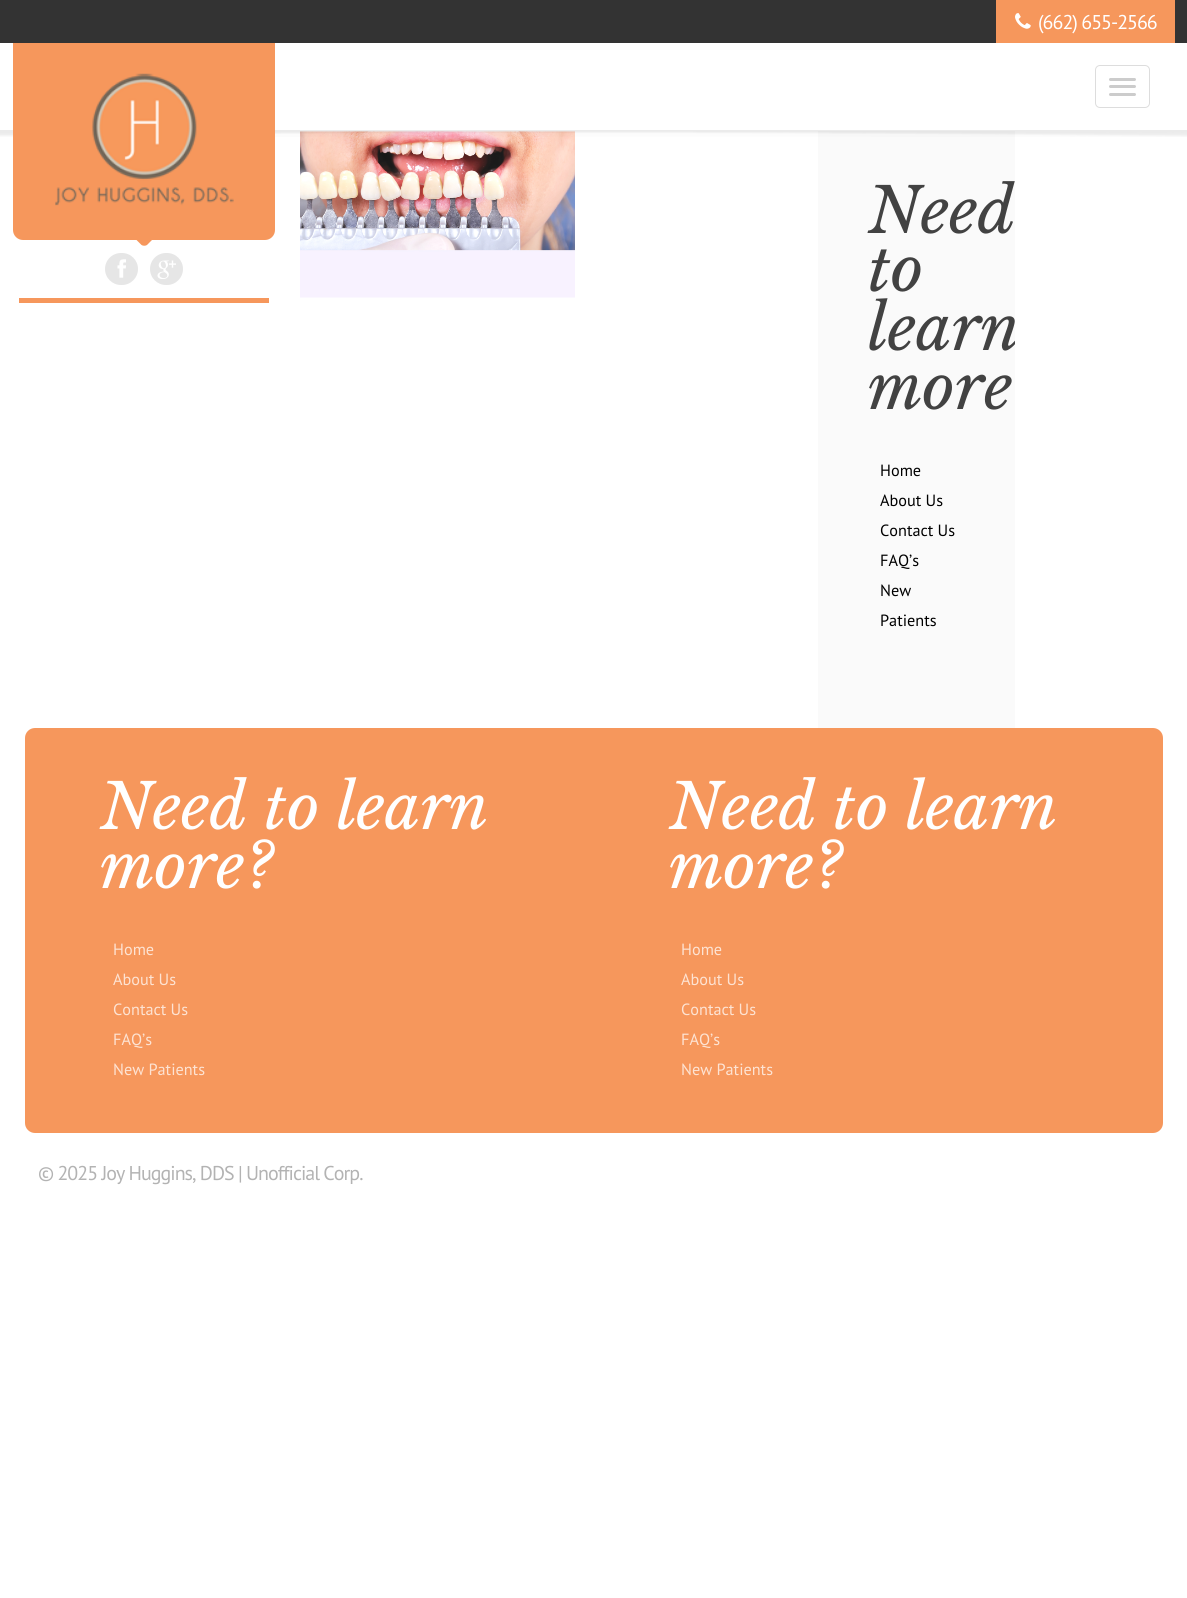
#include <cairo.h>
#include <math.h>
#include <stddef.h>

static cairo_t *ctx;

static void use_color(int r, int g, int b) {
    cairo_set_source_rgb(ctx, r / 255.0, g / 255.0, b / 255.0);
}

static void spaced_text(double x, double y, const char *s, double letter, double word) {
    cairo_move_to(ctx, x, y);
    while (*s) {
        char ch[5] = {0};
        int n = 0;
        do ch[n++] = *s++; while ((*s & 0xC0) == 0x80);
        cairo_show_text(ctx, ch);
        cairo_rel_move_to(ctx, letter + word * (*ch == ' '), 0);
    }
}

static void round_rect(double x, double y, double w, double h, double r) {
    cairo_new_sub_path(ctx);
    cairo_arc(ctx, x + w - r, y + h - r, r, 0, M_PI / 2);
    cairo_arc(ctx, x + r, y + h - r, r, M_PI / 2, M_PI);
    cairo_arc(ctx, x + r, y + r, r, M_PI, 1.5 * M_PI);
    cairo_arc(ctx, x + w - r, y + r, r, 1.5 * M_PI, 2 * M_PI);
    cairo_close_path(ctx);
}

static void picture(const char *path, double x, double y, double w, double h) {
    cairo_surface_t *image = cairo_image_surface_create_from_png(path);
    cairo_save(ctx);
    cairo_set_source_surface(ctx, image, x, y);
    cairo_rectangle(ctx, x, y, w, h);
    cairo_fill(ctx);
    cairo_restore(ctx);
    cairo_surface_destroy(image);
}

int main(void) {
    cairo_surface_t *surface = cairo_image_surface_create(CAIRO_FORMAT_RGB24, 1187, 1598);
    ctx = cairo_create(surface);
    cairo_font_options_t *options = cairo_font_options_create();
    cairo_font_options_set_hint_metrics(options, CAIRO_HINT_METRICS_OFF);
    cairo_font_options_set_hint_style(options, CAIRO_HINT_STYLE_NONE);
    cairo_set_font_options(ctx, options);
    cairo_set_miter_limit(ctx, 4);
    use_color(255, 255, 255);
    cairo_paint(ctx);
    use_color(51, 51, 51);
    cairo_rectangle(ctx, 0, 0, 1187, 43);
    cairo_fill(ctx);
    use_color(246, 151, 92);
    cairo_rectangle(ctx, 996, 0, 179, 43);
    cairo_fill(ctx);
    picture("img1.png", 1015, 13, 16, 16);
    cairo_select_font_face(ctx, "PT Sans", CAIRO_FONT_SLANT_NORMAL, CAIRO_FONT_WEIGHT_NORMAL);
    cairo_set_font_size(ctx, 20);
    use_color(255, 255, 255);
    spaced_text(1038, 29, "(662) 655-2566", -1, 0);
    picture("img6.png", 300, 131, 275, 167);
    use_color(250, 250, 250);
    cairo_rectangle(ctx, 818, 131, 197, 597);
    cairo_fill(ctx);
    picture("img5.png", 0, 130, 1187, 7);
    use_color(246, 151, 92);
    cairo_rectangle(ctx, 13, 43, 262, 185);
    cairo_fill(ctx);
    picture("img2.png", 55, 73, 179, 133);
    cairo_new_path(ctx);
    cairo_move_to(ctx, 147, 216.5);
    cairo_line_to(ctx, 158.5, 228);
    cairo_curve_to(ctx, 160, 229.5, 160, 232, 158.5, 233.5);
    cairo_line_to(ctx, 147, 245);
    cairo_curve_to(ctx, 145.5, 246, 143, 246, 141.5, 245);
    cairo_line_to(ctx, 130, 233.5);
    cairo_curve_to(ctx, 129, 232, 129, 229.5, 130, 228);
    cairo_line_to(ctx, 141.5, 216.5);
    cairo_curve_to(ctx, 143, 215, 145.5, 215, 147, 216.5);
    cairo_close_path(ctx);
    cairo_fill(ctx);
    cairo_new_path(ctx);
    cairo_move_to(ctx, 13, 228);
    cairo_line_to(ctx, 275, 228);
    cairo_line_to(ctx, 275, 230);
    cairo_curve_to(ctx, 275, 235.5, 270.5, 240, 265, 240);
    cairo_line_to(ctx, 23, 240);
    cairo_curve_to(ctx, 17.5, 240, 13, 235.5, 13, 230);
    cairo_close_path(ctx);
    cairo_fill(ctx);
    use_color(230, 230, 230);
    round_rect(105, 253, 33, 32, 16);
    cairo_fill(ctx);
    picture("img3.png", 117, 259, 9, 19);
    round_rect(150, 253, 33, 32, 16);
    cairo_fill(ctx);
    picture("img4.png", 157, 260, 19, 19);
    use_color(246, 151, 92);
    cairo_rectangle(ctx, 19, 298, 250, 5);
    cairo_fill(ctx);
    round_rect(1095.5, 65.5, 54, 42, 4.5);
    use_color(221, 221, 221);
    cairo_set_line_width(ctx, 1);
    cairo_stroke(ctx);
    use_color(204, 204, 204);
    round_rect(1109, 78, 27, 3, 1.5);
    cairo_fill(ctx);
    round_rect(1109, 85, 27, 3, 1.5);
    cairo_fill(ctx);
    round_rect(1109, 93, 27, 3, 1.5);
    cairo_fill(ctx);
    cairo_select_font_face(ctx, "Libre Baskerville", CAIRO_FONT_SLANT_ITALIC, CAIRO_FONT_WEIGHT_NORMAL);
    cairo_set_font_size(ctx, 62.5);
    use_color(66, 66, 66);
    cairo_move_to(ctx, 868, 233);
    cairo_show_text(ctx, "Need");
    cairo_move_to(ctx, 868, 291);
    cairo_show_text(ctx, "to");
    cairo_save(ctx);
    cairo_rectangle(ctx, 818, 131, 197, 597);
    cairo_clip(ctx);
    cairo_move_to(ctx, 868, 350);
    cairo_show_text(ctx, "learn");
    cairo_restore(ctx);
    cairo_move_to(ctx, 868, 409);
    cairo_show_text(ctx, "more");
    cairo_select_font_face(ctx, "PT Sans", CAIRO_FONT_SLANT_NORMAL, CAIRO_FONT_WEIGHT_NORMAL);
    cairo_set_font_size(ctx, 16.25);
    use_color(0, 0, 0);
    cairo_move_to(ctx, 880, 476);
    cairo_show_text(ctx, "Home");
    cairo_move_to(ctx, 880, 506);
    cairo_show_text(ctx, "About Us");
    cairo_move_to(ctx, 880, 536);
    cairo_show_text(ctx, "Contact Us");
    cairo_move_to(ctx, 880, 566);
    cairo_show_text(ctx, "FAQ’s");
    cairo_move_to(ctx, 880, 596);
    cairo_show_text(ctx, "New");
    cairo_move_to(ctx, 880, 626);
    cairo_show_text(ctx, "Patients");
    use_color(246, 151, 92);
    round_rect(25, 728, 1138, 405, 10);
    cairo_fill(ctx);
    cairo_select_font_face(ctx, "Libre Baskerville", CAIRO_FONT_SLANT_ITALIC, CAIRO_FONT_WEIGHT_NORMAL);
    cairo_set_font_size(ctx, 62.5);
    use_color(255, 255, 255);
    cairo_move_to(ctx, 100, 829);
    cairo_show_text(ctx, "Need to learn");
    cairo_move_to(ctx, 100, 888);
    cairo_show_text(ctx, "more?");
    cairo_select_font_face(ctx, "PT Sans", CAIRO_FONT_SLANT_NORMAL, CAIRO_FONT_WEIGHT_NORMAL);
    cairo_set_font_size(ctx, 16.25);
    use_color(253, 227, 211);
    cairo_move_to(ctx, 113, 955);
    cairo_show_text(ctx, "Home");
    cairo_move_to(ctx, 113, 985);
    cairo_show_text(ctx, "About Us");
    cairo_move_to(ctx, 113, 1015);
    cairo_show_text(ctx, "Contact Us");
    cairo_move_to(ctx, 113, 1045);
    cairo_show_text(ctx, "FAQ’s");
    cairo_move_to(ctx, 113, 1075);
    cairo_show_text(ctx, "New Patients");
    cairo_select_font_face(ctx, "Libre Baskerville", CAIRO_FONT_SLANT_ITALIC, CAIRO_FONT_WEIGHT_NORMAL);
    cairo_set_font_size(ctx, 62.5);
    use_color(255, 255, 255);
    cairo_move_to(ctx, 669, 829);
    cairo_show_text(ctx, "Need to learn");
    cairo_move_to(ctx, 669, 888);
    cairo_show_text(ctx, "more?");
    cairo_select_font_face(ctx, "PT Sans", CAIRO_FONT_SLANT_NORMAL, CAIRO_FONT_WEIGHT_NORMAL);
    cairo_set_font_size(ctx, 16.25);
    use_color(253, 227, 211);
    cairo_move_to(ctx, 681, 955);
    cairo_show_text(ctx, "Home");
    cairo_move_to(ctx, 681, 985);
    cairo_show_text(ctx, "About Us");
    cairo_move_to(ctx, 681, 1015);
    cairo_show_text(ctx, "Contact Us");
    cairo_move_to(ctx, 681, 1045);
    cairo_show_text(ctx, "FAQ’s");
    cairo_move_to(ctx, 681, 1075);
    cairo_show_text(ctx, "New Patients");
    cairo_set_font_size(ctx, 20);
    use_color(179, 179, 179);
    spaced_text(38, 1180, "© 2025 Joy Huggins, DDS | Unofficial Corp.", -1, 0);
    cairo_surface_write_to_png(surface, "result.png");
    cairo_font_options_destroy(options);
    cairo_destroy(ctx);
    cairo_surface_destroy(surface);
    return 0;
}
